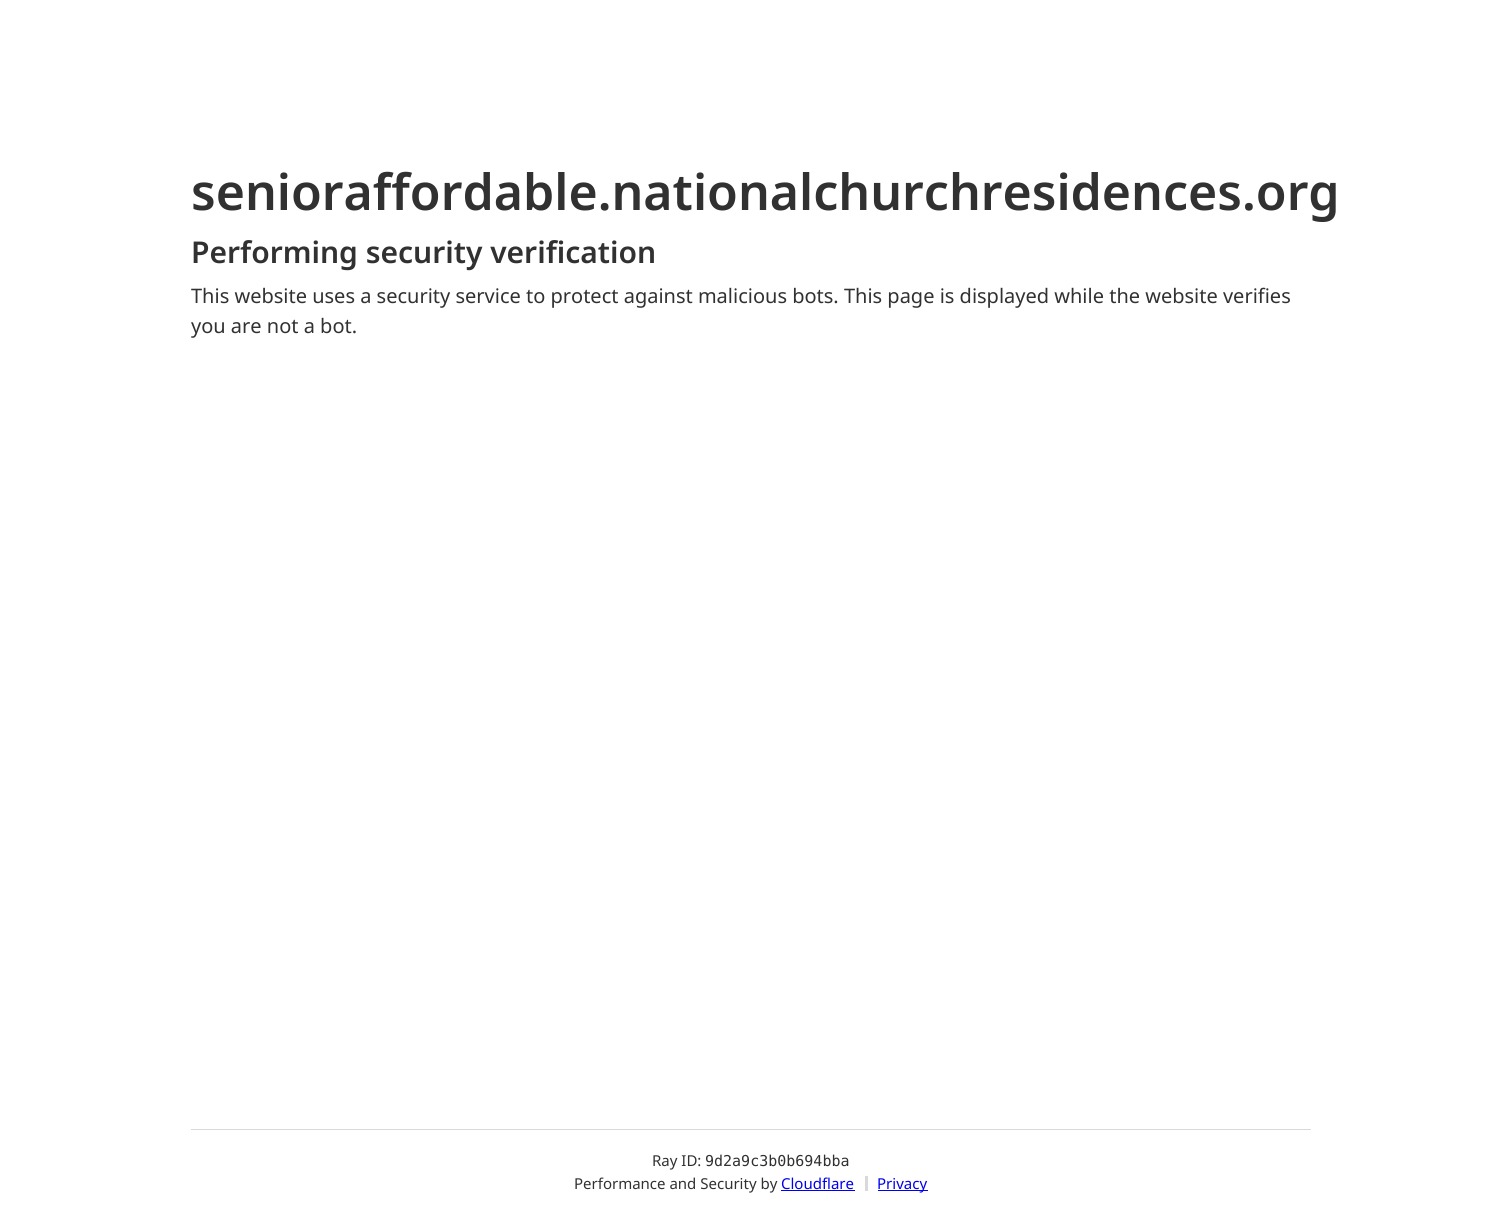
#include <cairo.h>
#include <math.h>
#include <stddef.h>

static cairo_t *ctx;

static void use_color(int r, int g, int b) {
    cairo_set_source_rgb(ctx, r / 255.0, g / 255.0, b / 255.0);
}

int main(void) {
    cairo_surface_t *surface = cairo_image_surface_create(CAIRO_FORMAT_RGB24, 1501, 1215);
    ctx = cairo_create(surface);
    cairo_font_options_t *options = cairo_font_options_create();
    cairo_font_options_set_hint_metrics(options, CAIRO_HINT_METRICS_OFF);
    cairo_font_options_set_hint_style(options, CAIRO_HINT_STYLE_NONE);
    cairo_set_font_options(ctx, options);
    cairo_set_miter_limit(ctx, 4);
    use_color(255, 255, 255);
    cairo_paint(ctx);
    cairo_select_font_face(ctx, "Noto Sans SemiBold", CAIRO_FONT_SLANT_NORMAL, CAIRO_FONT_WEIGHT_NORMAL);
    cairo_set_font_size(ctx, 50);
    use_color(49, 49, 49);
    cairo_move_to(ctx, 191, 210);
    cairo_show_text(ctx, "senioraffordable.nationalchurchresidences.org");
    cairo_set_font_size(ctx, 30);
    cairo_move_to(ctx, 191, 263);
    cairo_show_text(ctx, "Performing security verification");
    cairo_select_font_face(ctx, "Noto Sans", CAIRO_FONT_SLANT_NORMAL, CAIRO_FONT_WEIGHT_NORMAL);
    cairo_set_font_size(ctx, 20);
    cairo_move_to(ctx, 191, 303);
    cairo_show_text(ctx, "This website uses a security service to protect against malicious bots. This page is displayed while the website verifies");
    cairo_move_to(ctx, 191, 333);
    cairo_show_text(ctx, "you are not a bot.");
    use_color(217, 217, 217);
    cairo_rectangle(ctx, 191, 1129, 1120, 1);
    cairo_fill(ctx);
    cairo_set_font_size(ctx, 15);
    use_color(49, 49, 49);
    cairo_move_to(ctx, 652, 1166);
    cairo_show_text(ctx, "Ray ID:");
    cairo_select_font_face(ctx, "DejaVu Sans Mono", CAIRO_FONT_SLANT_NORMAL, CAIRO_FONT_WEIGHT_NORMAL);
    cairo_move_to(ctx, 705, 1166);
    cairo_show_text(ctx, "9d2a9c3b0b694bba");
    cairo_select_font_face(ctx, "Noto Sans", CAIRO_FONT_SLANT_NORMAL, CAIRO_FONT_WEIGHT_NORMAL);
    cairo_move_to(ctx, 574, 1189);
    cairo_show_text(ctx, "Performance and Security by");
    use_color(0, 0, 238);
    cairo_move_to(ctx, 781, 1189);
    cairo_show_text(ctx, "Cloudflare");
    cairo_rectangle(ctx, 781, 1190, 74, 1);
    cairo_fill(ctx);
    use_color(217, 217, 217);
    cairo_rectangle(ctx, 865, 1176, 3, 15);
    cairo_fill(ctx);
    use_color(0, 0, 238);
    cairo_rectangle(ctx, 878, 1190, 50, 1);
    cairo_fill(ctx);
    cairo_move_to(ctx, 877, 1189);
    cairo_show_text(ctx, "Privacy");
    cairo_surface_write_to_png(surface, "result.png");
    cairo_font_options_destroy(options);
    cairo_destroy(ctx);
    cairo_surface_destroy(surface);
    return 0;
}
